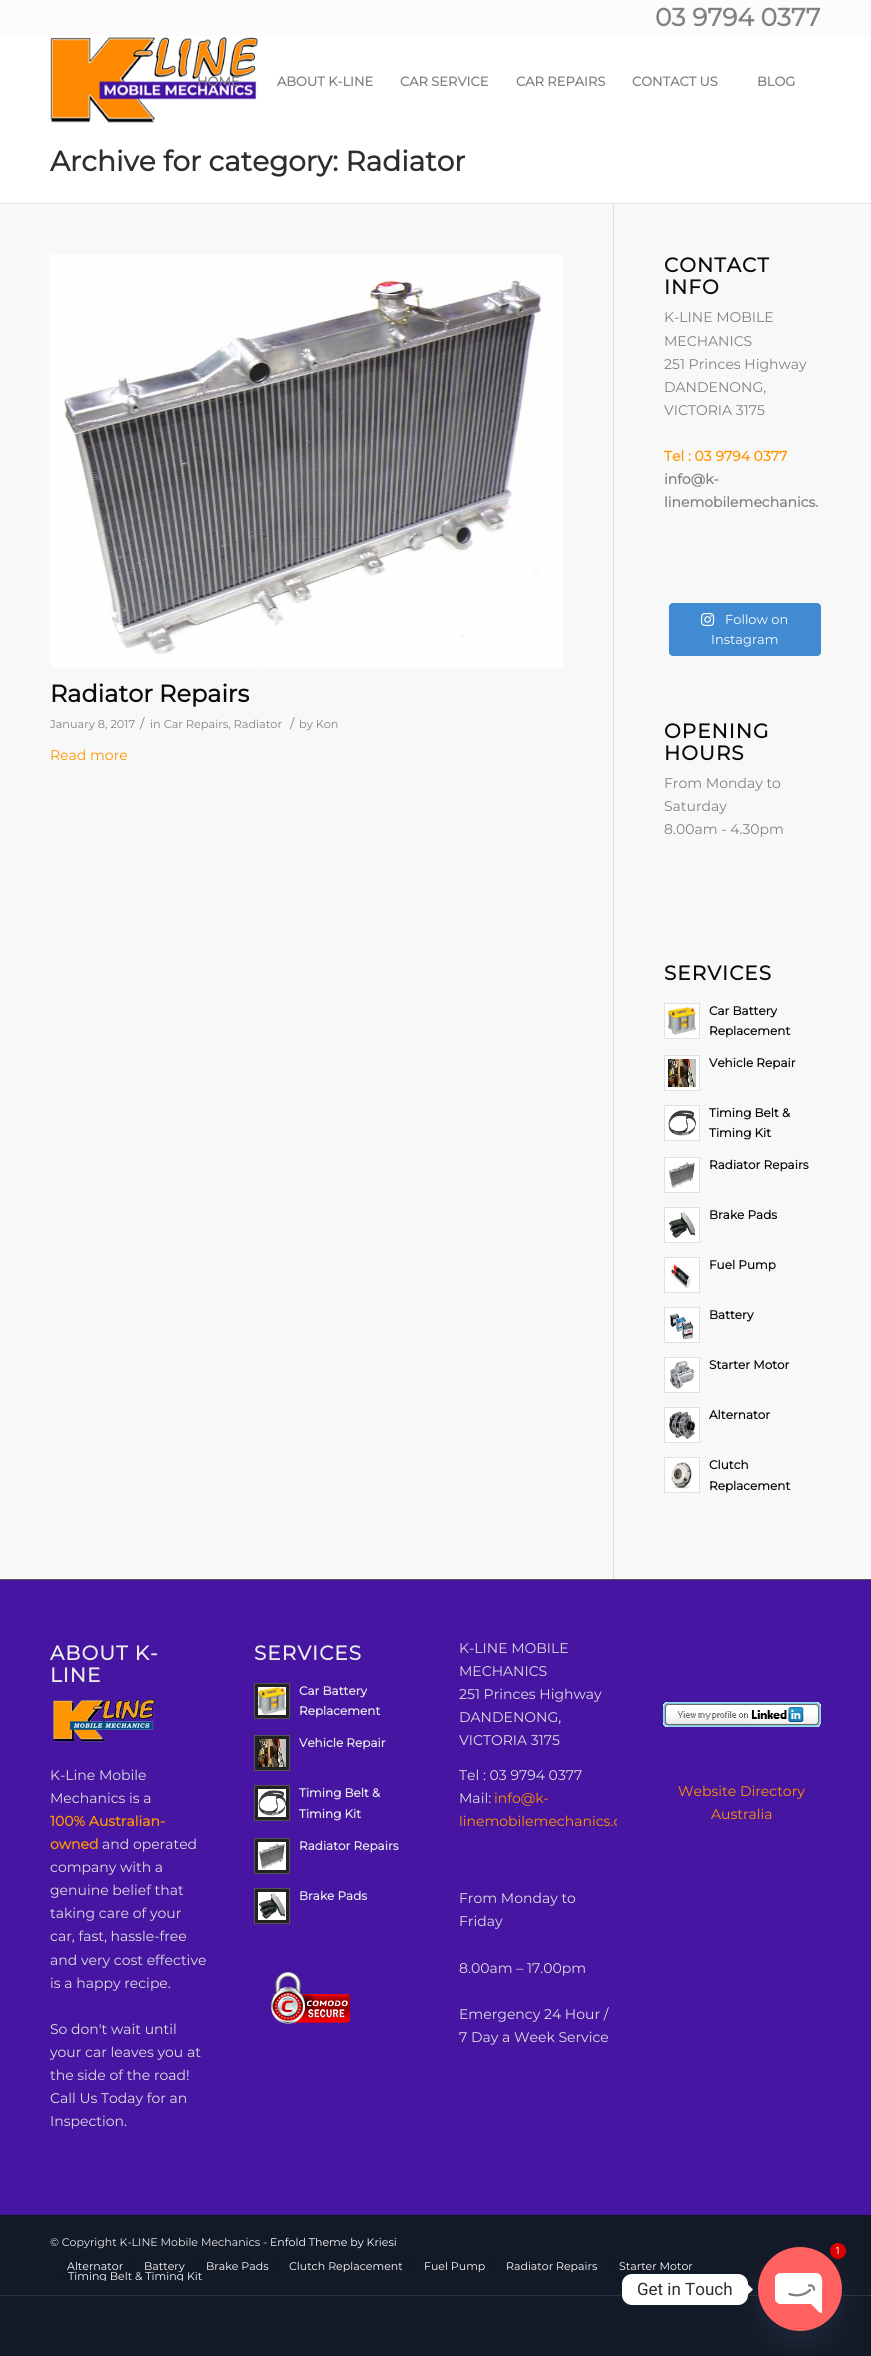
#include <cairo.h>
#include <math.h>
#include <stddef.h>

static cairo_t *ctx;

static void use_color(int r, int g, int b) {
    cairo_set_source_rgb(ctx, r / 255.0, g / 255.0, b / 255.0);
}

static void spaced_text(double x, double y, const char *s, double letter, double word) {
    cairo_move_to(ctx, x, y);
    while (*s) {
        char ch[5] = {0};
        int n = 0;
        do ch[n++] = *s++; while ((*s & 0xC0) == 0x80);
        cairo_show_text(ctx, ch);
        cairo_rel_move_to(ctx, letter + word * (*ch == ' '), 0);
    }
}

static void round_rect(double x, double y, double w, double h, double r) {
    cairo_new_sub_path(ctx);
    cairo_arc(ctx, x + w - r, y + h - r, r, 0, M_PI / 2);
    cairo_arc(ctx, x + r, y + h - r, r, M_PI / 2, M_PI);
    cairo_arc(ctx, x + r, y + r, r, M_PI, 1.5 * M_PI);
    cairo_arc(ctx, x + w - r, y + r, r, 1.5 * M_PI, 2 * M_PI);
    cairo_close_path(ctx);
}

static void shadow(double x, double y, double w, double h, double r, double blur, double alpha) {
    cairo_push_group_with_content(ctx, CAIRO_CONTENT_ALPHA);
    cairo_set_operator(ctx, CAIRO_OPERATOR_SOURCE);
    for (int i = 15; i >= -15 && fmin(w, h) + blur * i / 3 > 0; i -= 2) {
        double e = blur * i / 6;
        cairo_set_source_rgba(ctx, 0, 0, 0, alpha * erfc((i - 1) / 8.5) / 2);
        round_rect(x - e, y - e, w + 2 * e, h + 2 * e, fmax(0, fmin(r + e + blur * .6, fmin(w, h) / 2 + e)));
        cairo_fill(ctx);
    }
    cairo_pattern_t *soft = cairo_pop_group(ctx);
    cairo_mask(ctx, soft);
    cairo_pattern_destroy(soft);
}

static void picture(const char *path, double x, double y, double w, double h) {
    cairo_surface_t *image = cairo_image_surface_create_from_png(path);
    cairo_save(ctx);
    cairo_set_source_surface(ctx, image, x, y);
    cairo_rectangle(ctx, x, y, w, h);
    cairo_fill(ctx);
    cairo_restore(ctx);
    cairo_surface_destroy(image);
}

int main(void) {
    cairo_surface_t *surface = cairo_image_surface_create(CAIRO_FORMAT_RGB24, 871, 2356);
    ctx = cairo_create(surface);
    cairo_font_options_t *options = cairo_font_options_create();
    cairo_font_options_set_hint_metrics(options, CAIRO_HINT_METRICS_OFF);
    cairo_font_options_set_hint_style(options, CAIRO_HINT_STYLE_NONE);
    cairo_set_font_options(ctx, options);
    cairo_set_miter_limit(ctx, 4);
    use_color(19, 26, 39);
    cairo_paint(ctx);
    use_color(252, 252, 252);
    cairo_rectangle(ctx, 0, 0, 871, 36);
    cairo_fill(ctx);
    cairo_select_font_face(ctx, "Montserrat", CAIRO_FONT_SLANT_NORMAL, CAIRO_FONT_WEIGHT_BOLD);
    cairo_set_font_size(ctx, 25);
    use_color(129, 129, 129);
    cairo_move_to(ctx, 655, 26);
    cairo_show_text(ctx, "03 9794 0377");
    use_color(255, 255, 255);
    cairo_rectangle(ctx, 0, 36, 871, 167);
    cairo_fill(ctx);
    picture("img1.png", 50, 37, 208, 86);
    cairo_set_font_size(ctx, 13);
    use_color(129, 129, 129);
    cairo_move_to(ctx, 197, 86);
    cairo_show_text(ctx, "HOME");
    cairo_move_to(ctx, 277, 86);
    cairo_show_text(ctx, "ABOUT K-LINE");
    cairo_move_to(ctx, 400, 86);
    cairo_show_text(ctx, "CAR SERVICE");
    cairo_move_to(ctx, 516, 86);
    cairo_show_text(ctx, "CAR REPAIRS");
    cairo_move_to(ctx, 632, 86);
    cairo_show_text(ctx, "CONTACT US");
    cairo_move_to(ctx, 757, 86);
    cairo_show_text(ctx, "BLOG");
    cairo_set_font_size(ctx, 28);
    use_color(46, 46, 46);
    cairo_move_to(ctx, 50, 171);
    cairo_show_text(ctx, "Archive for category: Radiator");
    use_color(248, 248, 248);
    cairo_rectangle(ctx, 0, 204, 871, 1375);
    cairo_fill(ctx);
    use_color(225, 225, 225);
    cairo_rectangle(ctx, 0, 203, 871, 1);
    cairo_fill(ctx);
    picture("img2.png", 50, 254, 513, 414);
    cairo_set_font_size(ctx, 24);
    use_color(10, 10, 10);
    cairo_move_to(ctx, 50, 702);
    cairo_show_text(ctx, "Radiator Repairs");
    cairo_select_font_face(ctx, "Montserrat Thin", CAIRO_FONT_SLANT_NORMAL, CAIRO_FONT_WEIGHT_NORMAL);
    cairo_set_font_size(ctx, 11.3);
    use_color(129, 129, 129);
    cairo_move_to(ctx, 50, 728);
    cairo_show_text(ctx, "January 8, 2017");
    cairo_set_font_size(ctx, 13);
    cairo_move_to(ctx, 140, 728);
    cairo_show_text(ctx, "/");
    cairo_set_font_size(ctx, 11.3);
    cairo_move_to(ctx, 150, 728);
    cairo_show_text(ctx, "in Car Repairs, Radiator");
    cairo_set_font_size(ctx, 13);
    cairo_move_to(ctx, 290, 728);
    cairo_show_text(ctx, "/");
    cairo_set_font_size(ctx, 11.3);
    cairo_move_to(ctx, 299, 728);
    cairo_show_text(ctx, "by Kon");
    cairo_set_font_size(ctx, 14);
    use_color(255, 149, 1);
    cairo_move_to(ctx, 50, 760);
    cairo_show_text(ctx, "Read more");
    use_color(225, 225, 225);
    cairo_rectangle(ctx, 613, 204, 1, 1375);
    cairo_fill(ctx);
    cairo_select_font_face(ctx, "Montserrat", CAIRO_FONT_SLANT_NORMAL, CAIRO_FONT_WEIGHT_BOLD);
    cairo_set_font_size(ctx, 20);
    use_color(10, 10, 10);
    spaced_text(664, 272, "CONTACT", 1, 0);
    spaced_text(664, 294, "INFO", 1, 0);
    cairo_select_font_face(ctx, "Montserrat Thin", CAIRO_FONT_SLANT_NORMAL, CAIRO_FONT_WEIGHT_NORMAL);
    cairo_set_font_size(ctx, 14);
    use_color(129, 129, 129);
    cairo_move_to(ctx, 664, 322);
    cairo_show_text(ctx, "K-LINE MOBILE");
    cairo_move_to(ctx, 664, 346);
    cairo_show_text(ctx, "MECHANICS");
    cairo_move_to(ctx, 664, 369);
    cairo_show_text(ctx, "251 Princes Highway");
    cairo_move_to(ctx, 664, 392);
    cairo_show_text(ctx, "DANDENONG,");
    cairo_move_to(ctx, 664, 415);
    cairo_show_text(ctx, "VICTORIA 3175");
    cairo_select_font_face(ctx, "Montserrat", CAIRO_FONT_SLANT_NORMAL, CAIRO_FONT_WEIGHT_BOLD);
    use_color(255, 149, 1);
    cairo_move_to(ctx, 664, 461);
    cairo_show_text(ctx, "Tel : 03 9794 0377");
    use_color(129, 129, 129);
    cairo_move_to(ctx, 664, 484);
    cairo_show_text(ctx, "info@k-");
    cairo_move_to(ctx, 664, 507);
    cairo_show_text(ctx, "linemobilemechanics.");
    use_color(64, 139, 209);
    round_rect(669, 603, 152, 53, 4);
    cairo_fill(ctx);
    picture("img3.png", 701, 613, 14, 13);
    cairo_select_font_face(ctx, "Montserrat Thin", CAIRO_FONT_SLANT_NORMAL, CAIRO_FONT_WEIGHT_NORMAL);
    cairo_set_font_size(ctx, 13);
    use_color(255, 255, 255);
    cairo_move_to(ctx, 725, 624);
    cairo_show_text(ctx, "Follow on");
    cairo_move_to(ctx, 711, 644);
    cairo_show_text(ctx, "Instagram");
    cairo_select_font_face(ctx, "Montserrat", CAIRO_FONT_SLANT_NORMAL, CAIRO_FONT_WEIGHT_BOLD);
    cairo_set_font_size(ctx, 20);
    use_color(10, 10, 10);
    spaced_text(664, 738, "OPENING", 1, 0);
    spaced_text(664, 760, "HOURS", 1, 0);
    cairo_select_font_face(ctx, "Montserrat Thin", CAIRO_FONT_SLANT_NORMAL, CAIRO_FONT_WEIGHT_NORMAL);
    cairo_set_font_size(ctx, 14);
    use_color(129, 129, 129);
    cairo_move_to(ctx, 664, 788);
    cairo_show_text(ctx, "From Monday to");
    cairo_move_to(ctx, 664, 811);
    cairo_show_text(ctx, "Saturday");
    cairo_move_to(ctx, 664, 834);
    cairo_show_text(ctx, "8.00am - 4.30pm");
    cairo_select_font_face(ctx, "Montserrat", CAIRO_FONT_SLANT_NORMAL, CAIRO_FONT_WEIGHT_BOLD);
    cairo_set_font_size(ctx, 20);
    use_color(10, 10, 10);
    spaced_text(664, 980, "SERVICES", 1, 0);
    use_color(255, 255, 255);
    cairo_rectangle(ctx, 664.5, 1003.5, 35, 35);
    cairo_fill_preserve(ctx);
    use_color(225, 225, 225);
    cairo_set_line_width(ctx, 1);
    cairo_stroke(ctx);
    picture("img4.png", 668, 1007, 28, 28);
    cairo_set_font_size(ctx, 12);
    use_color(10, 10, 10);
    cairo_move_to(ctx, 709, 1015);
    cairo_show_text(ctx, "Car Battery");
    cairo_move_to(ctx, 709, 1035);
    cairo_show_text(ctx, "Replacement");
    use_color(255, 255, 255);
    cairo_rectangle(ctx, 664.5, 1055.5, 35, 35);
    cairo_fill_preserve(ctx);
    use_color(225, 225, 225);
    cairo_stroke(ctx);
    picture("img5.png", 668, 1059, 28, 28);
    use_color(10, 10, 10);
    cairo_move_to(ctx, 709, 1067);
    cairo_show_text(ctx, "Vehicle Repair");
    use_color(255, 255, 255);
    cairo_rectangle(ctx, 664.5, 1105.5, 35, 35);
    cairo_fill_preserve(ctx);
    use_color(225, 225, 225);
    cairo_stroke(ctx);
    picture("img6.png", 668, 1110, 28, 26);
    use_color(10, 10, 10);
    cairo_move_to(ctx, 709, 1117);
    cairo_show_text(ctx, "Timing Belt &");
    cairo_move_to(ctx, 709, 1137);
    cairo_show_text(ctx, "Timing Kit");
    use_color(255, 255, 255);
    cairo_rectangle(ctx, 664.5, 1157.5, 35, 35);
    cairo_fill_preserve(ctx);
    use_color(225, 225, 225);
    cairo_stroke(ctx);
    picture("img7.png", 668, 1162, 27, 27);
    use_color(10, 10, 10);
    cairo_move_to(ctx, 709, 1169);
    cairo_show_text(ctx, "Radiator Repairs");
    use_color(255, 255, 255);
    cairo_rectangle(ctx, 664.5, 1207.5, 35, 35);
    cairo_fill_preserve(ctx);
    use_color(225, 225, 225);
    cairo_stroke(ctx);
    picture("img8.png", 669, 1212, 26, 26);
    use_color(10, 10, 10);
    cairo_move_to(ctx, 709, 1219);
    cairo_show_text(ctx, "Brake Pads");
    use_color(255, 255, 255);
    cairo_rectangle(ctx, 664.5, 1257.5, 35, 35);
    cairo_fill_preserve(ctx);
    use_color(225, 225, 225);
    cairo_stroke(ctx);
    picture("img9.png", 670, 1264, 22, 25);
    use_color(10, 10, 10);
    cairo_move_to(ctx, 709, 1269);
    cairo_show_text(ctx, "Fuel Pump");
    use_color(255, 255, 255);
    cairo_rectangle(ctx, 664.5, 1307.5, 35, 35);
    cairo_fill_preserve(ctx);
    use_color(225, 225, 225);
    cairo_stroke(ctx);
    picture("img10.png", 670, 1313, 24, 26);
    use_color(10, 10, 10);
    cairo_move_to(ctx, 709, 1319);
    cairo_show_text(ctx, "Battery");
    use_color(255, 255, 255);
    cairo_rectangle(ctx, 664.5, 1357.5, 35, 35);
    cairo_fill_preserve(ctx);
    use_color(225, 225, 225);
    cairo_stroke(ctx);
    picture("img11.png", 669, 1361, 26, 28);
    use_color(10, 10, 10);
    cairo_move_to(ctx, 709, 1369);
    cairo_show_text(ctx, "Starter Motor");
    use_color(255, 255, 255);
    cairo_rectangle(ctx, 664.5, 1407.5, 35, 35);
    cairo_fill_preserve(ctx);
    use_color(225, 225, 225);
    cairo_stroke(ctx);
    picture("img12.png", 669, 1411, 26, 28);
    use_color(10, 10, 10);
    cairo_move_to(ctx, 709, 1419);
    cairo_show_text(ctx, "Alternator");
    use_color(255, 255, 255);
    cairo_rectangle(ctx, 664.5, 1457.5, 35, 35);
    cairo_fill_preserve(ctx);
    use_color(225, 225, 225);
    cairo_stroke(ctx);
    picture("img13.png", 671, 1462, 21, 27);
    use_color(10, 10, 10);
    cairo_move_to(ctx, 709, 1469);
    cairo_show_text(ctx, "Clutch");
    cairo_move_to(ctx, 709, 1490);
    cairo_show_text(ctx, "Replacement");
    use_color(70, 21, 161);
    cairo_rectangle(ctx, 0, 1580, 871, 635);
    cairo_fill(ctx);
    use_color(85, 85, 85);
    cairo_rectangle(ctx, 0, 1579, 871, 1);
    cairo_fill(ctx);
    cairo_set_font_size(ctx, 20);
    use_color(235, 235, 235);
    spaced_text(50, 1660, "ABOUT K-", 1, 0);
    spaced_text(50, 1682, "LINE", 1, 0);
    picture("img14.png", 53, 1698, 102, 44);
    cairo_select_font_face(ctx, "Montserrat Thin", CAIRO_FONT_SLANT_NORMAL, CAIRO_FONT_WEIGHT_NORMAL);
    cairo_set_font_size(ctx, 14);
    use_color(224, 224, 224);
    cairo_move_to(ctx, 50, 1780);
    cairo_show_text(ctx, "K-Line Mobile");
    cairo_move_to(ctx, 50, 1803);
    cairo_show_text(ctx, "Mechanics is a");
    cairo_select_font_face(ctx, "Montserrat", CAIRO_FONT_SLANT_NORMAL, CAIRO_FONT_WEIGHT_BOLD);
    use_color(255, 149, 1);
    cairo_move_to(ctx, 50, 1826);
    cairo_show_text(ctx, "100% Australian-");
    cairo_move_to(ctx, 50, 1849);
    cairo_show_text(ctx, "owned");
    cairo_select_font_face(ctx, "Montserrat Thin", CAIRO_FONT_SLANT_NORMAL, CAIRO_FONT_WEIGHT_NORMAL);
    use_color(224, 224, 224);
    cairo_move_to(ctx, 102, 1849);
    cairo_show_text(ctx, "and operated");
    cairo_move_to(ctx, 50, 1872);
    cairo_show_text(ctx, "company with a");
    cairo_move_to(ctx, 50, 1895);
    cairo_show_text(ctx, "genuine belief that");
    cairo_move_to(ctx, 50, 1918);
    cairo_show_text(ctx, "taking care of your");
    cairo_move_to(ctx, 50, 1941);
    cairo_show_text(ctx, "car, fast, hassle-free");
    cairo_move_to(ctx, 50, 1965);
    cairo_show_text(ctx, "and very cost effective");
    cairo_move_to(ctx, 50, 1988);
    cairo_show_text(ctx, "is a happy recipe.");
    cairo_move_to(ctx, 50, 2034);
    cairo_show_text(ctx, "So don't wait until");
    cairo_move_to(ctx, 50, 2057);
    cairo_show_text(ctx, "your car leaves you at");
    cairo_move_to(ctx, 50, 2080);
    cairo_show_text(ctx, "the side of the road!");
    cairo_move_to(ctx, 50, 2103);
    cairo_show_text(ctx, "Call Us Today for an");
    cairo_move_to(ctx, 50, 2126);
    cairo_show_text(ctx, "Inspection.");
    cairo_select_font_face(ctx, "Montserrat", CAIRO_FONT_SLANT_NORMAL, CAIRO_FONT_WEIGHT_BOLD);
    cairo_set_font_size(ctx, 20);
    use_color(235, 235, 235);
    spaced_text(254, 1660, "SERVICES", 1, 0);
    use_color(34, 34, 34);
    cairo_rectangle(ctx, 254.5, 1683.5, 35, 35);
    cairo_fill_preserve(ctx);
    use_color(85, 85, 85);
    cairo_stroke(ctx);
    picture("img15.png", 258, 1687, 28, 28);
    cairo_set_font_size(ctx, 12);
    use_color(235, 235, 235);
    cairo_move_to(ctx, 299, 1695);
    cairo_show_text(ctx, "Car Battery");
    cairo_move_to(ctx, 299, 1715);
    cairo_show_text(ctx, "Replacement");
    use_color(34, 34, 34);
    cairo_rectangle(ctx, 254.5, 1735.5, 35, 35);
    cairo_fill_preserve(ctx);
    use_color(85, 85, 85);
    cairo_stroke(ctx);
    picture("img16.png", 258, 1739, 28, 28);
    use_color(235, 235, 235);
    cairo_move_to(ctx, 299, 1747);
    cairo_show_text(ctx, "Vehicle Repair");
    use_color(34, 34, 34);
    cairo_rectangle(ctx, 254.5, 1785.5, 35, 35);
    cairo_fill_preserve(ctx);
    use_color(85, 85, 85);
    cairo_stroke(ctx);
    picture("img17.png", 258, 1789, 28, 28);
    use_color(235, 235, 235);
    cairo_move_to(ctx, 299, 1797);
    cairo_show_text(ctx, "Timing Belt &");
    cairo_move_to(ctx, 299, 1818);
    cairo_show_text(ctx, "Timing Kit");
    use_color(34, 34, 34);
    cairo_rectangle(ctx, 254.5, 1838.5, 35, 35);
    cairo_fill_preserve(ctx);
    use_color(85, 85, 85);
    cairo_stroke(ctx);
    picture("img18.png", 258, 1842, 28, 28);
    use_color(235, 235, 235);
    cairo_move_to(ctx, 299, 1850);
    cairo_show_text(ctx, "Radiator Repairs");
    use_color(34, 34, 34);
    cairo_rectangle(ctx, 254.5, 1888.5, 35, 35);
    cairo_fill_preserve(ctx);
    use_color(85, 85, 85);
    cairo_stroke(ctx);
    picture("img19.png", 258, 1892, 28, 28);
    use_color(235, 235, 235);
    cairo_move_to(ctx, 299, 1900);
    cairo_show_text(ctx, "Brake Pads");
    picture("img20.png", 271, 1972, 79, 52);
    cairo_select_font_face(ctx, "Montserrat Thin", CAIRO_FONT_SLANT_NORMAL, CAIRO_FONT_WEIGHT_NORMAL);
    cairo_set_font_size(ctx, 14);
    use_color(224, 224, 224);
    cairo_move_to(ctx, 459, 1653);
    cairo_show_text(ctx, "K-LINE MOBILE");
    cairo_move_to(ctx, 459, 1676);
    cairo_show_text(ctx, "MECHANICS");
    cairo_move_to(ctx, 459, 1699);
    cairo_show_text(ctx, "251 Princes Highway");
    cairo_move_to(ctx, 459, 1722);
    cairo_show_text(ctx, "DANDENONG,");
    cairo_move_to(ctx, 459, 1745);
    cairo_show_text(ctx, "VICTORIA 3175");
    cairo_move_to(ctx, 459, 1780);
    cairo_show_text(ctx, "Tel : 03 9794 0377");
    cairo_move_to(ctx, 459, 1803);
    cairo_show_text(ctx, "Mail:");
    use_color(255, 149, 1);
    cairo_move_to(ctx, 494, 1803);
    cairo_show_text(ctx, "info@k-");
    cairo_save(ctx);
    cairo_rectangle(ctx, 459, 1625, 158, 220);
    cairo_clip(ctx);
    cairo_move_to(ctx, 459, 1826);
    cairo_show_text(ctx, "linemobilemechanics.c");
    cairo_restore(ctx);
    use_color(224, 224, 224);
    cairo_move_to(ctx, 459, 1903);
    cairo_show_text(ctx, "From Monday to");
    cairo_move_to(ctx, 459, 1926);
    cairo_show_text(ctx, "Friday");
    cairo_move_to(ctx, 459, 1973);
    cairo_show_text(ctx, "8.00am – 17.00pm");
    cairo_move_to(ctx, 459, 2019);
    cairo_show_text(ctx, "Emergency 24 Hour /");
    cairo_move_to(ctx, 459, 2042);
    cairo_show_text(ctx, "7 Day a Week Service");
    picture("img21.png", 663, 1702, 158, 25);
    use_color(255, 149, 1);
    cairo_move_to(ctx, 678, 1796);
    cairo_show_text(ctx, "Website Directory");
    cairo_move_to(ctx, 711, 1819);
    cairo_show_text(ctx, "Australia");
    picture("img22.png", 0, 2217, 871, 79);
    use_color(16, 22, 33);
    cairo_rectangle(ctx, 0, 2215, 871, 1);
    cairo_fill(ctx);
    cairo_set_font_size(ctx, 11);
    use_color(235, 235, 235);
    cairo_move_to(ctx, 50, 2246);
    cairo_show_text(ctx, "© Copyright K-LINE Mobile Mechanics -");
    use_color(255, 255, 255);
    cairo_move_to(ctx, 270, 2246);
    cairo_show_text(ctx, "Enfold Theme by Kriesi");
    cairo_move_to(ctx, 67, 2270);
    cairo_show_text(ctx, "Alternator");
    use_color(16, 22, 33);
    cairo_rectangle(ctx, 133, 2261, 1, 10);
    cairo_fill(ctx);
    use_color(255, 255, 255);
    cairo_move_to(ctx, 144, 2270);
    cairo_show_text(ctx, "Battery");
    use_color(16, 22, 33);
    cairo_rectangle(ctx, 195, 2261, 1, 10);
    cairo_fill(ctx);
    use_color(255, 255, 255);
    cairo_move_to(ctx, 206, 2270);
    cairo_show_text(ctx, "Brake Pads");
    use_color(16, 22, 33);
    cairo_rectangle(ctx, 278, 2261, 1, 10);
    cairo_fill(ctx);
    use_color(255, 255, 255);
    cairo_move_to(ctx, 289, 2270);
    cairo_show_text(ctx, "Clutch Replacement");
    use_color(16, 22, 33);
    cairo_rectangle(ctx, 413, 2261, 1, 10);
    cairo_fill(ctx);
    use_color(255, 255, 255);
    cairo_move_to(ctx, 424, 2270);
    cairo_show_text(ctx, "Fuel Pump");
    use_color(16, 22, 33);
    cairo_rectangle(ctx, 495, 2261, 1, 10);
    cairo_fill(ctx);
    use_color(255, 255, 255);
    cairo_move_to(ctx, 506, 2270);
    cairo_show_text(ctx, "Radiator Repairs");
    use_color(16, 22, 33);
    cairo_rectangle(ctx, 608, 2261, 1, 10);
    cairo_fill(ctx);
    use_color(255, 255, 255);
    cairo_move_to(ctx, 619, 2270);
    cairo_show_text(ctx, "Starter Motor");
    use_color(16, 22, 33);
    cairo_rectangle(ctx, 57, 2271, 1, 10);
    cairo_fill(ctx);
    cairo_save(ctx);
    cairo_rectangle(ctx, 50, 2255, 771, 26);
    cairo_clip(ctx);
    use_color(255, 255, 255);
    cairo_move_to(ctx, 68, 2280);
    cairo_show_text(ctx, "Timing Belt & Timing Kit");
    cairo_restore(ctx);
    use_color(255, 255, 255);
    round_rect(622, 2274, 126, 31, 10);
    cairo_fill(ctx);
    cairo_new_path(ctx);
    cairo_move_to(ctx, 748, 2294.5);
    cairo_line_to(ctx, 748, 2284.5);
    cairo_line_to(ctx, 753, 2289.5);
    cairo_close_path(ctx);
    cairo_fill(ctx);
    use_color(73, 104, 126);
    shadow(758, 2263, 84, 84, 42, 12, 0.16);
    use_color(255, 96, 96);
    cairo_arc(ctx, 800, 2289, 42, 0, 2 * M_PI);
    cairo_fill(ctx);
    use_color(221, 0, 0);
    cairo_arc(ctx, 838, 2251, 8, 0, 2 * M_PI);
    cairo_fill(ctx);
    cairo_select_font_face(ctx, "Roboto", CAIRO_FONT_SLANT_NORMAL, CAIRO_FONT_WEIGHT_NORMAL);
    cairo_set_font_size(ctx, 10);
    use_color(255, 255, 255);
    cairo_move_to(ctx, 835, 2254);
    cairo_show_text(ctx, "1");
    cairo_new_path(ctx);
    cairo_move_to(ctx, 816, 2273);
    cairo_line_to(ctx, 781, 2273);
    cairo_curve_to(ctx, 778, 2273, 775, 2275, 775, 2278);
    cairo_line_to(ctx, 775, 2299);
    cairo_curve_to(ctx, 775, 2302, 778, 2304, 781, 2304);
    cairo_line_to(ctx, 811, 2304);
    cairo_line_to(ctx, 817, 2310);
    cairo_curve_to(ctx, 817, 2310, 821, 2315, 822, 2312);
    cairo_line_to(ctx, 822, 2289);
    cairo_curve_to(ctx, 822, 2285, 824, 2273, 816, 2273);
    cairo_close_path(ctx);
    cairo_fill(ctx);
    cairo_new_path(ctx);
    cairo_move_to(ctx, 789.5, 2294);
    cairo_curve_to(ctx, 793.5, 2295.5, 803, 2297, 810, 2290);
    cairo_move_to(ctx, 814, 2289.5);
    cairo_curve_to(ctx, 814, 2288, 813, 2284.5, 809, 2285.5);
    use_color(128, 128, 128);
    cairo_set_line_width(ctx, 2.3);
    cairo_set_line_cap(ctx, CAIRO_LINE_CAP_ROUND);
    cairo_set_line_join(ctx, CAIRO_LINE_JOIN_ROUND);
    cairo_stroke(ctx);
    cairo_set_font_size(ctx, 17);
    use_color(46, 46, 46);
    cairo_move_to(ctx, 637, 2295);
    cairo_show_text(ctx, "Get in Touch");
    cairo_surface_write_to_png(surface, "result.png");
    cairo_font_options_destroy(options);
    cairo_destroy(ctx);
    cairo_surface_destroy(surface);
    return 0;
}
